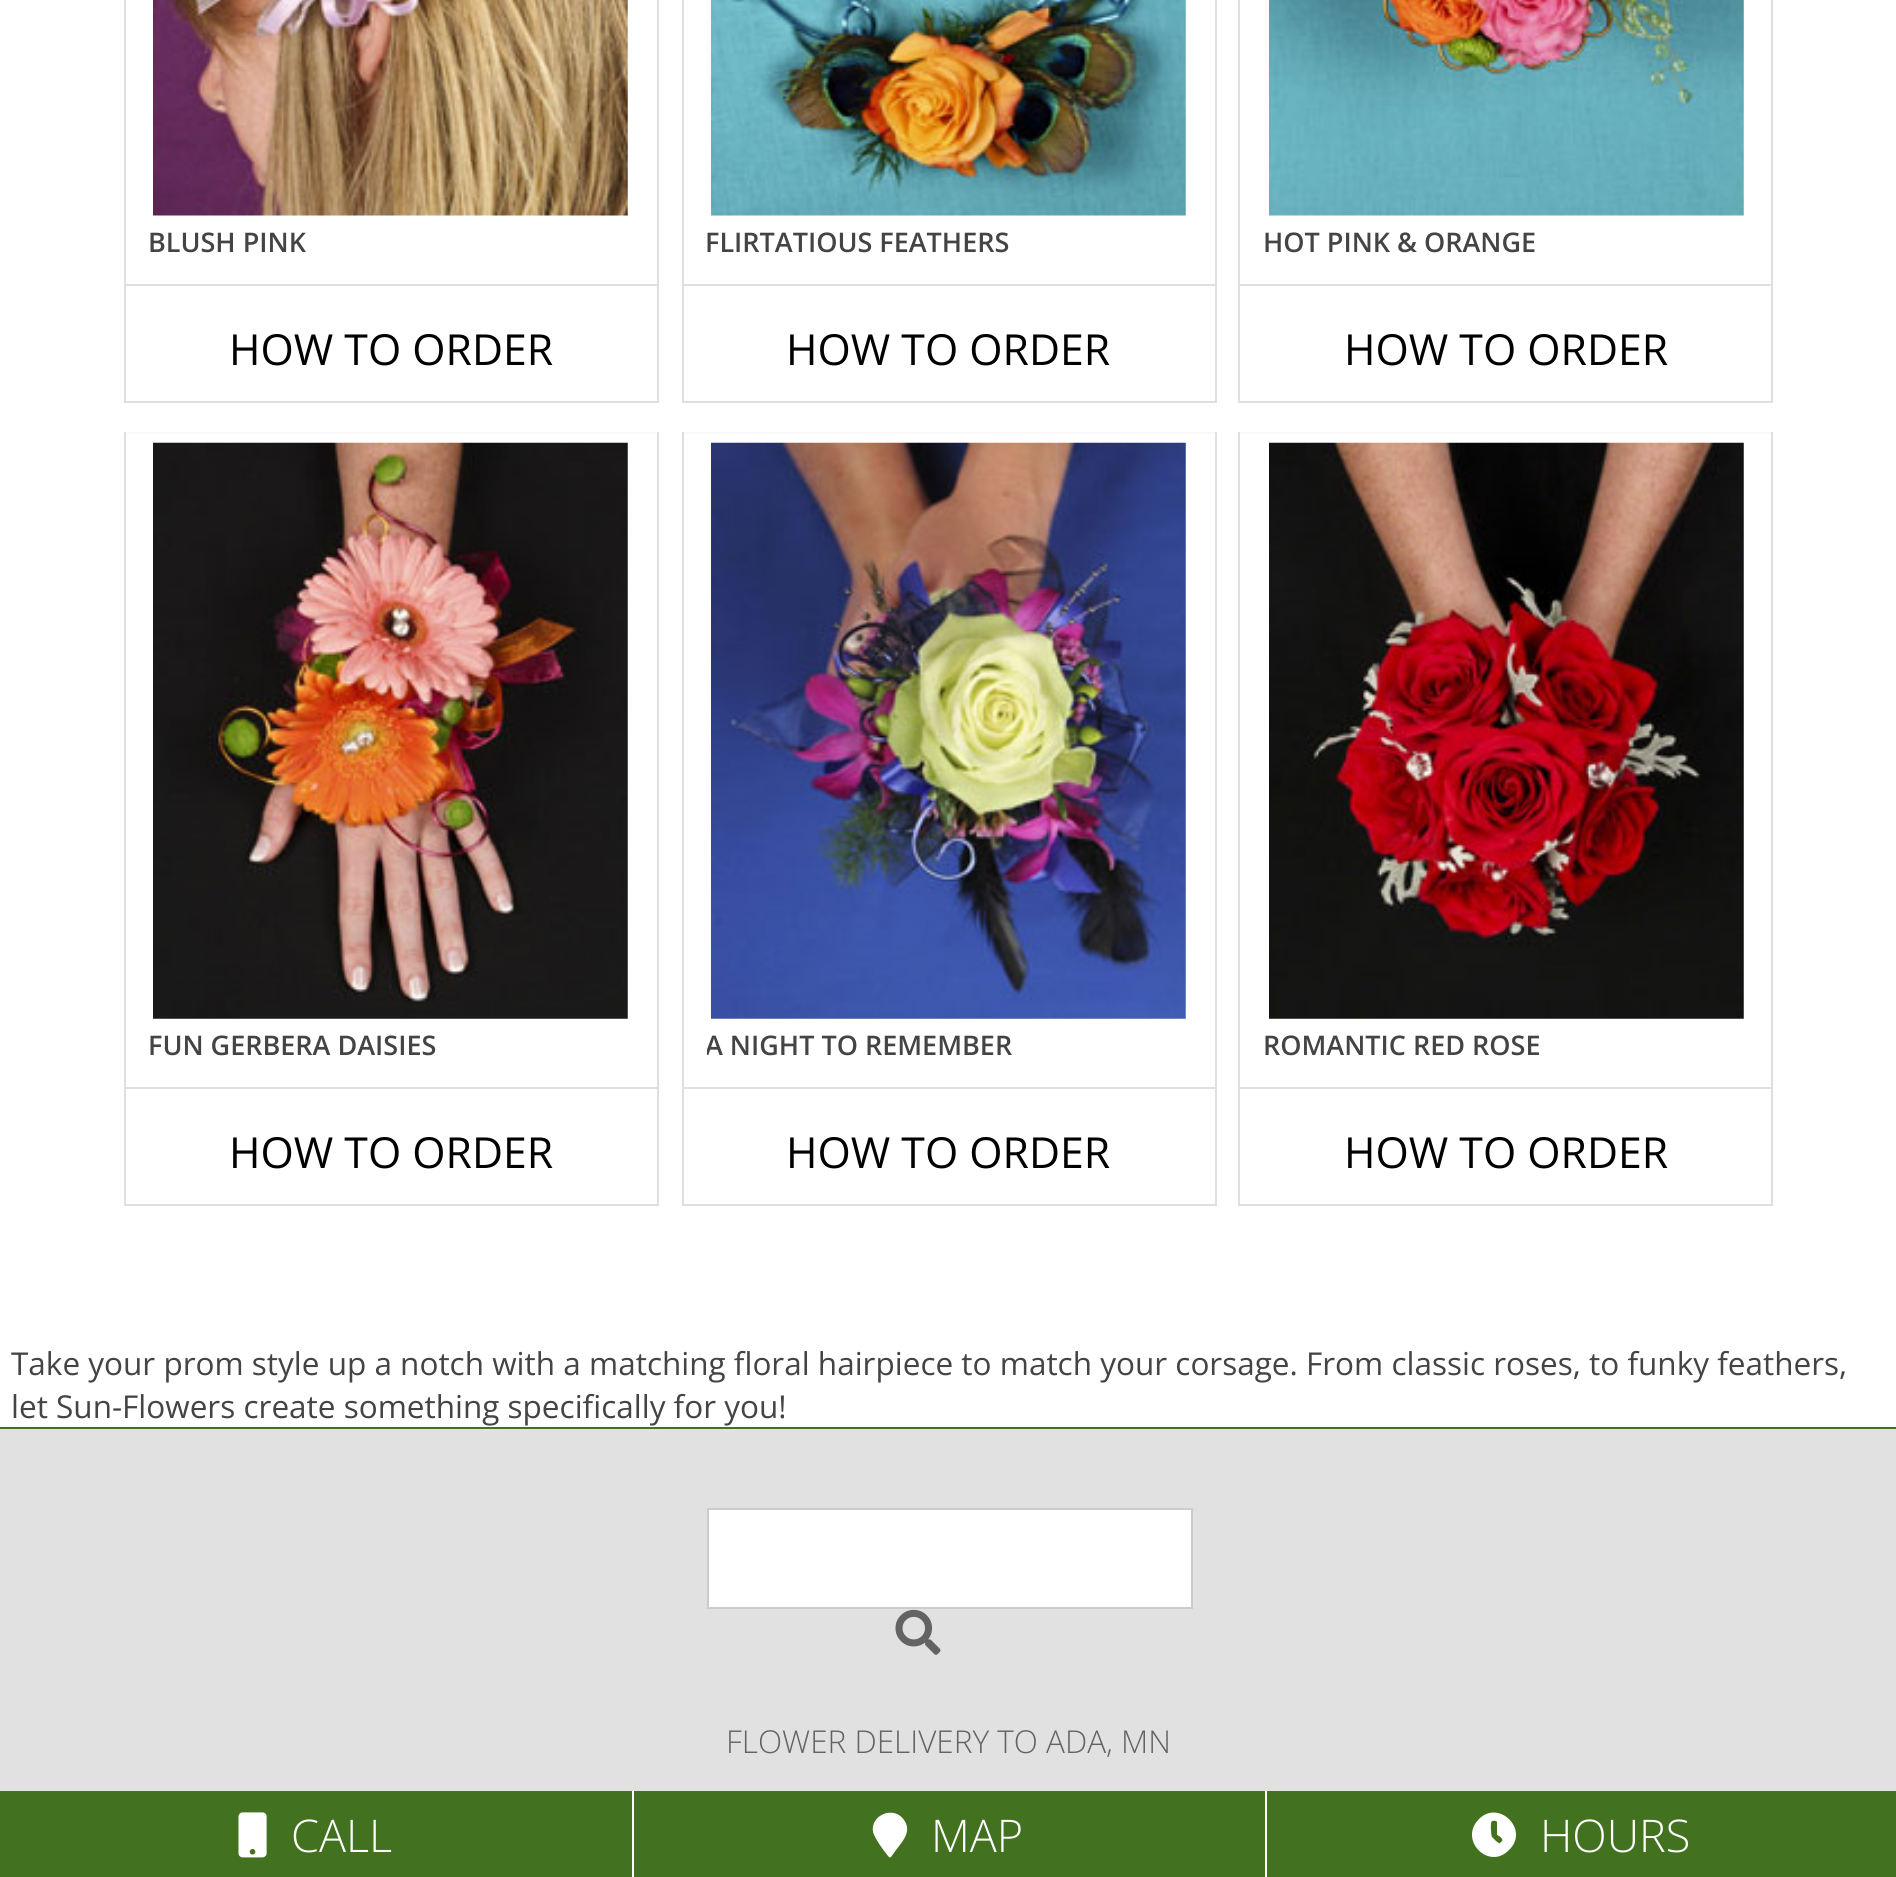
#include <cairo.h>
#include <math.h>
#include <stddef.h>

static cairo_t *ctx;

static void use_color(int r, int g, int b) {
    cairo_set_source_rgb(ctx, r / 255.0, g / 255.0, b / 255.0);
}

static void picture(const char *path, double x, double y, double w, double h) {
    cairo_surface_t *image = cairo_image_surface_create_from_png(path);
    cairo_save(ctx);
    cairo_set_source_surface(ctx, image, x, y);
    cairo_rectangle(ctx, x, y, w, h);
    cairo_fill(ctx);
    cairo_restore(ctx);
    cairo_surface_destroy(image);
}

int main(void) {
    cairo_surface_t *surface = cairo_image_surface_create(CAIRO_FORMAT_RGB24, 1896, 1877);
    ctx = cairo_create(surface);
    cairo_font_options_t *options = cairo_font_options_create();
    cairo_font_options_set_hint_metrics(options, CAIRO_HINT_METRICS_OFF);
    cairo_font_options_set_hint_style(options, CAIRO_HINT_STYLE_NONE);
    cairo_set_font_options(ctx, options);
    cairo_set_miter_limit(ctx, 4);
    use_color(255, 255, 255);
    cairo_paint(ctx);
    use_color(226, 222, 221);
    cairo_rectangle(ctx, 657, 0, 2, 403);
    cairo_fill(ctx);
    cairo_rectangle(ctx, 124, 401, 535, 2);
    cairo_fill(ctx);
    cairo_rectangle(ctx, 124, 0, 2, 403);
    cairo_fill(ctx);
    picture("img1.png", 153, 0, 475, 216);
    cairo_select_font_face(ctx, "Open Sans SemiBold", CAIRO_FONT_SLANT_NORMAL, CAIRO_FONT_WEIGHT_NORMAL);
    cairo_set_font_size(ctx, 27);
    use_color(68, 68, 68);
    cairo_move_to(ctx, 148, 252);
    cairo_show_text(ctx, "BLUSH PINK");
    use_color(226, 222, 221);
    cairo_rectangle(ctx, 126, 284, 531, 2);
    cairo_fill(ctx);
    cairo_select_font_face(ctx, "Open Sans", CAIRO_FONT_SLANT_NORMAL, CAIRO_FONT_WEIGHT_NORMAL);
    cairo_set_font_size(ctx, 42.75);
    use_color(0, 0, 0);
    cairo_move_to(ctx, 229, 365);
    cairo_show_text(ctx, "HOW TO ORDER");
    use_color(226, 222, 221);
    cairo_rectangle(ctx, 1215, 0, 2, 403);
    cairo_fill(ctx);
    cairo_rectangle(ctx, 682, 401, 535, 2);
    cairo_fill(ctx);
    cairo_rectangle(ctx, 682, 0, 2, 403);
    cairo_fill(ctx);
    picture("img2.png", 711, 0, 475, 216);
    cairo_select_font_face(ctx, "Open Sans SemiBold", CAIRO_FONT_SLANT_NORMAL, CAIRO_FONT_WEIGHT_NORMAL);
    cairo_set_font_size(ctx, 27);
    use_color(68, 68, 68);
    cairo_move_to(ctx, 705, 252);
    cairo_show_text(ctx, "FLIRTATIOUS FEATHERS");
    use_color(226, 222, 221);
    cairo_rectangle(ctx, 684, 284, 531, 2);
    cairo_fill(ctx);
    cairo_select_font_face(ctx, "Open Sans", CAIRO_FONT_SLANT_NORMAL, CAIRO_FONT_WEIGHT_NORMAL);
    cairo_set_font_size(ctx, 42.75);
    use_color(0, 0, 0);
    cairo_move_to(ctx, 786, 365);
    cairo_show_text(ctx, "HOW TO ORDER");
    use_color(226, 222, 221);
    cairo_rectangle(ctx, 1771, 0, 2, 403);
    cairo_fill(ctx);
    cairo_rectangle(ctx, 1238, 401, 535, 2);
    cairo_fill(ctx);
    cairo_rectangle(ctx, 1238, 0, 2, 403);
    cairo_fill(ctx);
    picture("img3.png", 1269, 0, 475, 216);
    cairo_select_font_face(ctx, "Open Sans SemiBold", CAIRO_FONT_SLANT_NORMAL, CAIRO_FONT_WEIGHT_NORMAL);
    cairo_set_font_size(ctx, 27);
    use_color(68, 68, 68);
    cairo_move_to(ctx, 1263, 252);
    cairo_show_text(ctx, "HOT PINK & ORANGE");
    use_color(226, 222, 221);
    cairo_rectangle(ctx, 1240, 284, 531, 2);
    cairo_fill(ctx);
    cairo_select_font_face(ctx, "Open Sans", CAIRO_FONT_SLANT_NORMAL, CAIRO_FONT_WEIGHT_NORMAL);
    cairo_set_font_size(ctx, 42.75);
    use_color(0, 0, 0);
    cairo_move_to(ctx, 1344, 365);
    cairo_show_text(ctx, "HOW TO ORDER");
    use_color(249, 249, 249);
    cairo_rectangle(ctx, 124, 432, 535, 2);
    cairo_fill(ctx);
    use_color(226, 222, 221);
    cairo_rectangle(ctx, 657, 432, 2, 774);
    cairo_fill(ctx);
    cairo_rectangle(ctx, 124, 1204, 535, 2);
    cairo_fill(ctx);
    cairo_rectangle(ctx, 124, 432, 2, 774);
    cairo_fill(ctx);
    picture("img4.png", 153, 442, 475, 577);
    cairo_select_font_face(ctx, "Open Sans SemiBold", CAIRO_FONT_SLANT_NORMAL, CAIRO_FONT_WEIGHT_NORMAL);
    cairo_set_font_size(ctx, 27);
    use_color(68, 68, 68);
    cairo_move_to(ctx, 148, 1055);
    cairo_show_text(ctx, "FUN GERBERA DAISIES");
    use_color(226, 222, 221);
    cairo_rectangle(ctx, 126, 1087, 531, 2);
    cairo_fill(ctx);
    cairo_select_font_face(ctx, "Open Sans", CAIRO_FONT_SLANT_NORMAL, CAIRO_FONT_WEIGHT_NORMAL);
    cairo_set_font_size(ctx, 42.75);
    use_color(0, 0, 0);
    cairo_move_to(ctx, 229, 1168);
    cairo_show_text(ctx, "HOW TO ORDER");
    use_color(249, 249, 249);
    cairo_rectangle(ctx, 682, 432, 535, 2);
    cairo_fill(ctx);
    use_color(226, 222, 221);
    cairo_rectangle(ctx, 1215, 432, 2, 774);
    cairo_fill(ctx);
    cairo_rectangle(ctx, 682, 1204, 535, 2);
    cairo_fill(ctx);
    cairo_rectangle(ctx, 682, 432, 2, 774);
    cairo_fill(ctx);
    picture("img5.png", 711, 442, 475, 577);
    cairo_save(ctx);
    cairo_rectangle(ctx, 707, 1026, 324, 38);
    cairo_clip(ctx);
    cairo_select_font_face(ctx, "Open Sans SemiBold", CAIRO_FONT_SLANT_NORMAL, CAIRO_FONT_WEIGHT_NORMAL);
    cairo_set_font_size(ctx, 27);
    use_color(68, 68, 68);
    cairo_move_to(ctx, 705, 1055);
    cairo_show_text(ctx, "A NIGHT TO REMEMBER");
    cairo_restore(ctx);
    cairo_rectangle(ctx, 684, 1087, 531, 2);
    cairo_fill(ctx);
    use_color(0, 0, 0);
    cairo_move_to(ctx, 786, 1168);
    cairo_show_text(ctx, "HOW TO ORDER");
    use_color(249, 249, 249);
    cairo_rectangle(ctx, 1238, 432, 535, 2);
    cairo_fill(ctx);
    use_color(226, 222, 221);
    cairo_rectangle(ctx, 1771, 432, 2, 774);
    cairo_fill(ctx);
    cairo_rectangle(ctx, 1238, 1204, 535, 2);
    cairo_fill(ctx);
    cairo_rectangle(ctx, 1238, 432, 2, 774);
    cairo_fill(ctx);
    picture("img6.png", 1269, 442, 475, 577);
    cairo_select_font_face(ctx, "Open Sans SemiBold", CAIRO_FONT_SLANT_NORMAL, CAIRO_FONT_WEIGHT_NORMAL);
    cairo_set_font_size(ctx, 27);
    use_color(68, 68, 68);
    cairo_move_to(ctx, 1263, 1055);
    cairo_show_text(ctx, "ROMANTIC RED ROSE");
    use_color(226, 222, 221);
    cairo_rectangle(ctx, 1240, 1087, 531, 2);
    cairo_fill(ctx);
    cairo_select_font_face(ctx, "Open Sans", CAIRO_FONT_SLANT_NORMAL, CAIRO_FONT_WEIGHT_NORMAL);
    cairo_set_font_size(ctx, 42.75);
    use_color(0, 0, 0);
    cairo_move_to(ctx, 1344, 1168);
    cairo_show_text(ctx, "HOW TO ORDER");
    cairo_set_font_size(ctx, 31.5);
    use_color(68, 68, 68);
    cairo_move_to(ctx, 11, 1375);
    cairo_show_text(ctx, "Take your prom style up a notch with a matching floral hairpiece to match your corsage. From classic roses, to funky feathers,");
    cairo_move_to(ctx, 11, 1418);
    cairo_show_text(ctx, "let Sun-Flowers create something specifically for you!");
    use_color(225, 225, 225);
    cairo_rectangle(ctx, 0, 1429, 1896, 362);
    cairo_fill(ctx);
    use_color(66, 114, 31);
    cairo_rectangle(ctx, 0, 1427, 1896, 2);
    cairo_fill(ctx);
    use_color(255, 255, 255);
    cairo_rectangle(ctx, 708, 1509, 484, 99);
    cairo_fill_preserve(ctx);
    use_color(204, 204, 204);
    cairo_stroke(ctx);
    picture("img7.png", 895, 1609, 46, 46);
    cairo_select_font_face(ctx, "Open Sans Light", CAIRO_FONT_SLANT_NORMAL, CAIRO_FONT_WEIGHT_NORMAL);
    use_color(99, 99, 99);
    cairo_move_to(ctx, 726, 1753);
    cairo_show_text(ctx, "FLOWER DELIVERY TO ADA, MN");
    use_color(66, 114, 31);
    cairo_rectangle(ctx, 0, 1791, 632, 86);
    cairo_fill(ctx);
    picture("img8.png", 238, 1812, 29, 46);
    cairo_set_font_size(ctx, 45);
    use_color(255, 255, 255);
    cairo_move_to(ctx, 291, 1852);
    cairo_show_text(ctx, "CALL");
    use_color(66, 114, 31);
    cairo_rectangle(ctx, 634, 1791, 631, 86);
    cairo_fill(ctx);
    use_color(255, 255, 255);
    cairo_new_path(ctx);
    cairo_move_to(ctx, 888, 1856);
    cairo_curve_to(ctx, 884, 1851, 875, 1839, 873, 1832);
    cairo_curve_to(ctx, 870, 1815, 894, 1805, 904, 1820);
    cairo_curve_to(ctx, 912, 1831, 903, 1841, 896, 1850);
    cairo_line_to(ctx, 891, 1857);
    cairo_curve_to(ctx, 890, 1858, 889, 1857, 888, 1856);
    cairo_close_path(ctx);
    cairo_fill(ctx);
    cairo_move_to(ctx, 931, 1852);
    cairo_show_text(ctx, "MAP");
    use_color(66, 114, 31);
    cairo_rectangle(ctx, 1267, 1791, 629, 86);
    cairo_fill(ctx);
    use_color(255, 255, 255);
    cairo_new_path(ctx);
    cairo_move_to(ctx, 1479, 1819);
    cairo_curve_to(ctx, 1499, 1799, 1530, 1830, 1509, 1850);
    cairo_curve_to(ctx, 1489, 1871, 1458, 1840, 1479, 1819);
    cairo_close_path(ctx);
    cairo_move_to(ctx, 1502, 1841);
    cairo_curve_to(ctx, 1504, 1839, 1498, 1835, 1497, 1835);
    cairo_line_to(ctx, 1497, 1822);
    cairo_curve_to(ctx, 1496, 1820, 1493, 1821, 1492, 1821);
    cairo_curve_to(ctx, 1490, 1822, 1491, 1836, 1492, 1837);
    cairo_line_to(ctx, 1496, 1841);
    cairo_curve_to(ctx, 1500, 1844, 1499, 1844, 1502, 1841);
    cairo_close_path(ctx);
    cairo_fill(ctx);
    cairo_move_to(ctx, 1540, 1852);
    cairo_show_text(ctx, "HOURS");
    cairo_surface_write_to_png(surface, "result.png");
    cairo_font_options_destroy(options);
    cairo_destroy(ctx);
    cairo_surface_destroy(surface);
    return 0;
}
